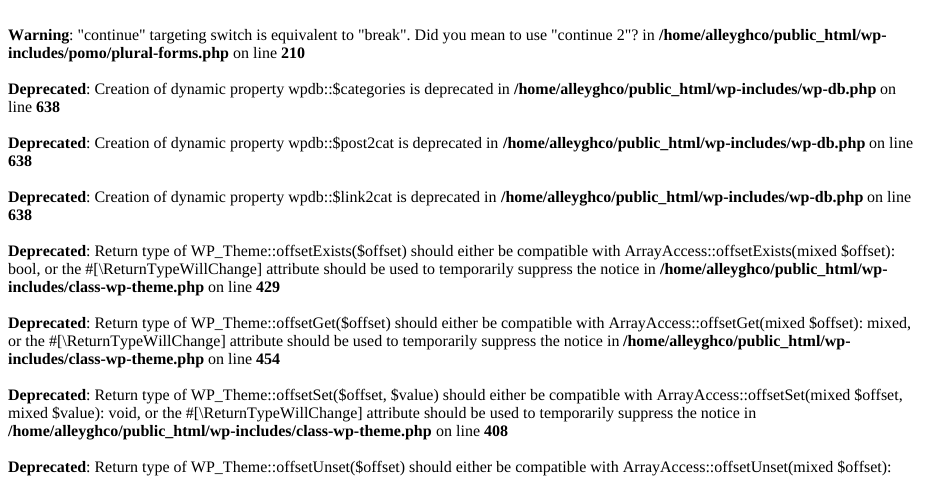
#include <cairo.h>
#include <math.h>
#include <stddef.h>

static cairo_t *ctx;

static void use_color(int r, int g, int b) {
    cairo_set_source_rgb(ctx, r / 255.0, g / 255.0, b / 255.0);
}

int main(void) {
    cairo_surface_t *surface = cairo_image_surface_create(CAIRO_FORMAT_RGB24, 927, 480);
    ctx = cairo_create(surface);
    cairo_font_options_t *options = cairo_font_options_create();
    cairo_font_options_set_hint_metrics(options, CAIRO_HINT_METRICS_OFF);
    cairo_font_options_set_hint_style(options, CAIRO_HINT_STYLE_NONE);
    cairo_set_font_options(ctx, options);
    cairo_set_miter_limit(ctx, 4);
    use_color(255, 255, 255);
    cairo_paint(ctx);
    cairo_select_font_face(ctx, "Liberation Serif", CAIRO_FONT_SLANT_NORMAL, CAIRO_FONT_WEIGHT_BOLD);
    cairo_set_font_size(ctx, 16);
    use_color(0, 0, 0);
    cairo_move_to(ctx, 8, 40);
    cairo_show_text(ctx, "Warning");
    cairo_select_font_face(ctx, "Liberation Serif", CAIRO_FONT_SLANT_NORMAL, CAIRO_FONT_WEIGHT_NORMAL);
    cairo_move_to(ctx, 69, 40);
    cairo_show_text(ctx, ": \"continue\" targeting switch is equivalent to \"break\". Did you mean to use \"continue 2\"? in");
    cairo_select_font_face(ctx, "Liberation Serif", CAIRO_FONT_SLANT_NORMAL, CAIRO_FONT_WEIGHT_BOLD);
    cairo_move_to(ctx, 659, 40);
    cairo_show_text(ctx, "/home/alleyghco/public_html/wp-");
    cairo_move_to(ctx, 8, 58);
    cairo_show_text(ctx, "includes/pomo/plural-forms.php");
    cairo_select_font_face(ctx, "Liberation Serif", CAIRO_FONT_SLANT_NORMAL, CAIRO_FONT_WEIGHT_NORMAL);
    cairo_move_to(ctx, 233, 58);
    cairo_show_text(ctx, "on line");
    cairo_select_font_face(ctx, "Liberation Serif", CAIRO_FONT_SLANT_NORMAL, CAIRO_FONT_WEIGHT_BOLD);
    cairo_move_to(ctx, 281, 58);
    cairo_show_text(ctx, "210");
    cairo_move_to(ctx, 8, 94);
    cairo_show_text(ctx, "Deprecated");
    cairo_select_font_face(ctx, "Liberation Serif", CAIRO_FONT_SLANT_NORMAL, CAIRO_FONT_WEIGHT_NORMAL);
    cairo_move_to(ctx, 86, 94);
    cairo_show_text(ctx, ": Creation of dynamic property wpdb::$categories is deprecated in");
    cairo_select_font_face(ctx, "Liberation Serif", CAIRO_FONT_SLANT_NORMAL, CAIRO_FONT_WEIGHT_BOLD);
    cairo_move_to(ctx, 514, 94);
    cairo_show_text(ctx, "/home/alleyghco/public_html/wp-includes/wp-db.php");
    cairo_select_font_face(ctx, "Liberation Serif", CAIRO_FONT_SLANT_NORMAL, CAIRO_FONT_WEIGHT_NORMAL);
    cairo_move_to(ctx, 880, 94);
    cairo_show_text(ctx, "on");
    cairo_move_to(ctx, 8, 112);
    cairo_show_text(ctx, "line");
    cairo_select_font_face(ctx, "Liberation Serif", CAIRO_FONT_SLANT_NORMAL, CAIRO_FONT_WEIGHT_BOLD);
    cairo_move_to(ctx, 36, 112);
    cairo_show_text(ctx, "638");
    cairo_move_to(ctx, 8, 148);
    cairo_show_text(ctx, "Deprecated");
    cairo_select_font_face(ctx, "Liberation Serif", CAIRO_FONT_SLANT_NORMAL, CAIRO_FONT_WEIGHT_NORMAL);
    cairo_move_to(ctx, 86, 148);
    cairo_show_text(ctx, ": Creation of dynamic property wpdb::$post2cat is deprecated in");
    cairo_select_font_face(ctx, "Liberation Serif", CAIRO_FONT_SLANT_NORMAL, CAIRO_FONT_WEIGHT_BOLD);
    cairo_move_to(ctx, 503, 148);
    cairo_show_text(ctx, "/home/alleyghco/public_html/wp-includes/wp-db.php");
    cairo_select_font_face(ctx, "Liberation Serif", CAIRO_FONT_SLANT_NORMAL, CAIRO_FONT_WEIGHT_NORMAL);
    cairo_move_to(ctx, 869, 148);
    cairo_show_text(ctx, "on line");
    cairo_select_font_face(ctx, "Liberation Serif", CAIRO_FONT_SLANT_NORMAL, CAIRO_FONT_WEIGHT_BOLD);
    cairo_move_to(ctx, 8, 166);
    cairo_show_text(ctx, "638");
    cairo_move_to(ctx, 8, 202);
    cairo_show_text(ctx, "Deprecated");
    cairo_select_font_face(ctx, "Liberation Serif", CAIRO_FONT_SLANT_NORMAL, CAIRO_FONT_WEIGHT_NORMAL);
    cairo_move_to(ctx, 86, 202);
    cairo_show_text(ctx, ": Creation of dynamic property wpdb::$link2cat is deprecated in");
    cairo_select_font_face(ctx, "Liberation Serif", CAIRO_FONT_SLANT_NORMAL, CAIRO_FONT_WEIGHT_BOLD);
    cairo_move_to(ctx, 501, 202);
    cairo_show_text(ctx, "/home/alleyghco/public_html/wp-includes/wp-db.php");
    cairo_select_font_face(ctx, "Liberation Serif", CAIRO_FONT_SLANT_NORMAL, CAIRO_FONT_WEIGHT_NORMAL);
    cairo_move_to(ctx, 867, 202);
    cairo_show_text(ctx, "on line");
    cairo_select_font_face(ctx, "Liberation Serif", CAIRO_FONT_SLANT_NORMAL, CAIRO_FONT_WEIGHT_BOLD);
    cairo_move_to(ctx, 8, 220);
    cairo_show_text(ctx, "638");
    cairo_move_to(ctx, 8, 256);
    cairo_show_text(ctx, "Deprecated");
    cairo_select_font_face(ctx, "Liberation Serif", CAIRO_FONT_SLANT_NORMAL, CAIRO_FONT_WEIGHT_NORMAL);
    cairo_move_to(ctx, 86, 256);
    cairo_show_text(ctx, ": Return type of WP_Theme::offsetExists($offset) should either be compatible with ArrayAccess::offsetExists(mixed $offset):");
    cairo_move_to(ctx, 8, 274);
    cairo_show_text(ctx, "bool, or the #[\\ReturnTypeWillChange] attribute should be used to temporarily suppress the notice in");
    cairo_select_font_face(ctx, "Liberation Serif", CAIRO_FONT_SLANT_NORMAL, CAIRO_FONT_WEIGHT_BOLD);
    cairo_move_to(ctx, 660, 274);
    cairo_show_text(ctx, "/home/alleyghco/public_html/wp-");
    cairo_move_to(ctx, 8, 292);
    cairo_show_text(ctx, "includes/class-wp-theme.php");
    cairo_select_font_face(ctx, "Liberation Serif", CAIRO_FONT_SLANT_NORMAL, CAIRO_FONT_WEIGHT_NORMAL);
    cairo_move_to(ctx, 208, 292);
    cairo_show_text(ctx, "on line");
    cairo_select_font_face(ctx, "Liberation Serif", CAIRO_FONT_SLANT_NORMAL, CAIRO_FONT_WEIGHT_BOLD);
    cairo_move_to(ctx, 256, 292);
    cairo_show_text(ctx, "429");
    cairo_move_to(ctx, 8, 328);
    cairo_show_text(ctx, "Deprecated");
    cairo_select_font_face(ctx, "Liberation Serif", CAIRO_FONT_SLANT_NORMAL, CAIRO_FONT_WEIGHT_NORMAL);
    cairo_move_to(ctx, 86, 328);
    cairo_show_text(ctx, ": Return type of WP_Theme::offsetGet($offset) should either be compatible with ArrayAccess::offsetGet(mixed $offset): mixed,");
    cairo_move_to(ctx, 8, 346);
    cairo_show_text(ctx, "or the #[\\ReturnTypeWillChange] attribute should be used to temporarily suppress the notice in");
    cairo_select_font_face(ctx, "Liberation Serif", CAIRO_FONT_SLANT_NORMAL, CAIRO_FONT_WEIGHT_BOLD);
    cairo_move_to(ctx, 623, 346);
    cairo_show_text(ctx, "/home/alleyghco/public_html/wp-");
    cairo_move_to(ctx, 8, 364);
    cairo_show_text(ctx, "includes/class-wp-theme.php");
    cairo_select_font_face(ctx, "Liberation Serif", CAIRO_FONT_SLANT_NORMAL, CAIRO_FONT_WEIGHT_NORMAL);
    cairo_move_to(ctx, 208, 364);
    cairo_show_text(ctx, "on line");
    cairo_select_font_face(ctx, "Liberation Serif", CAIRO_FONT_SLANT_NORMAL, CAIRO_FONT_WEIGHT_BOLD);
    cairo_move_to(ctx, 256, 364);
    cairo_show_text(ctx, "454");
    cairo_move_to(ctx, 8, 400);
    cairo_show_text(ctx, "Deprecated");
    cairo_select_font_face(ctx, "Liberation Serif", CAIRO_FONT_SLANT_NORMAL, CAIRO_FONT_WEIGHT_NORMAL);
    cairo_move_to(ctx, 86, 400);
    cairo_show_text(ctx, ": Return type of WP_Theme::offsetSet($offset, $value) should either be compatible with ArrayAccess::offsetSet(mixed $offset,");
    cairo_move_to(ctx, 8, 418);
    cairo_show_text(ctx, "mixed $value): void, or the #[\\ReturnTypeWillChange] attribute should be used to temporarily suppress the notice in");
    cairo_select_font_face(ctx, "Liberation Serif", CAIRO_FONT_SLANT_NORMAL, CAIRO_FONT_WEIGHT_BOLD);
    cairo_move_to(ctx, 8, 436);
    cairo_show_text(ctx, "/home/alleyghco/public_html/wp-includes/class-wp-theme.php");
    cairo_select_font_face(ctx, "Liberation Serif", CAIRO_FONT_SLANT_NORMAL, CAIRO_FONT_WEIGHT_NORMAL);
    cairo_move_to(ctx, 436, 436);
    cairo_show_text(ctx, "on line");
    cairo_select_font_face(ctx, "Liberation Serif", CAIRO_FONT_SLANT_NORMAL, CAIRO_FONT_WEIGHT_BOLD);
    cairo_move_to(ctx, 484, 436);
    cairo_show_text(ctx, "408");
    cairo_move_to(ctx, 8, 472);
    cairo_show_text(ctx, "Deprecated");
    cairo_select_font_face(ctx, "Liberation Serif", CAIRO_FONT_SLANT_NORMAL, CAIRO_FONT_WEIGHT_NORMAL);
    cairo_move_to(ctx, 86, 472);
    cairo_show_text(ctx, ": Return type of WP_Theme::offsetUnset($offset) should either be compatible with ArrayAccess::offsetUnset(mixed $offset):");
    cairo_surface_write_to_png(surface, "result.png");
    cairo_font_options_destroy(options);
    cairo_destroy(ctx);
    cairo_surface_destroy(surface);
    return 0;
}
